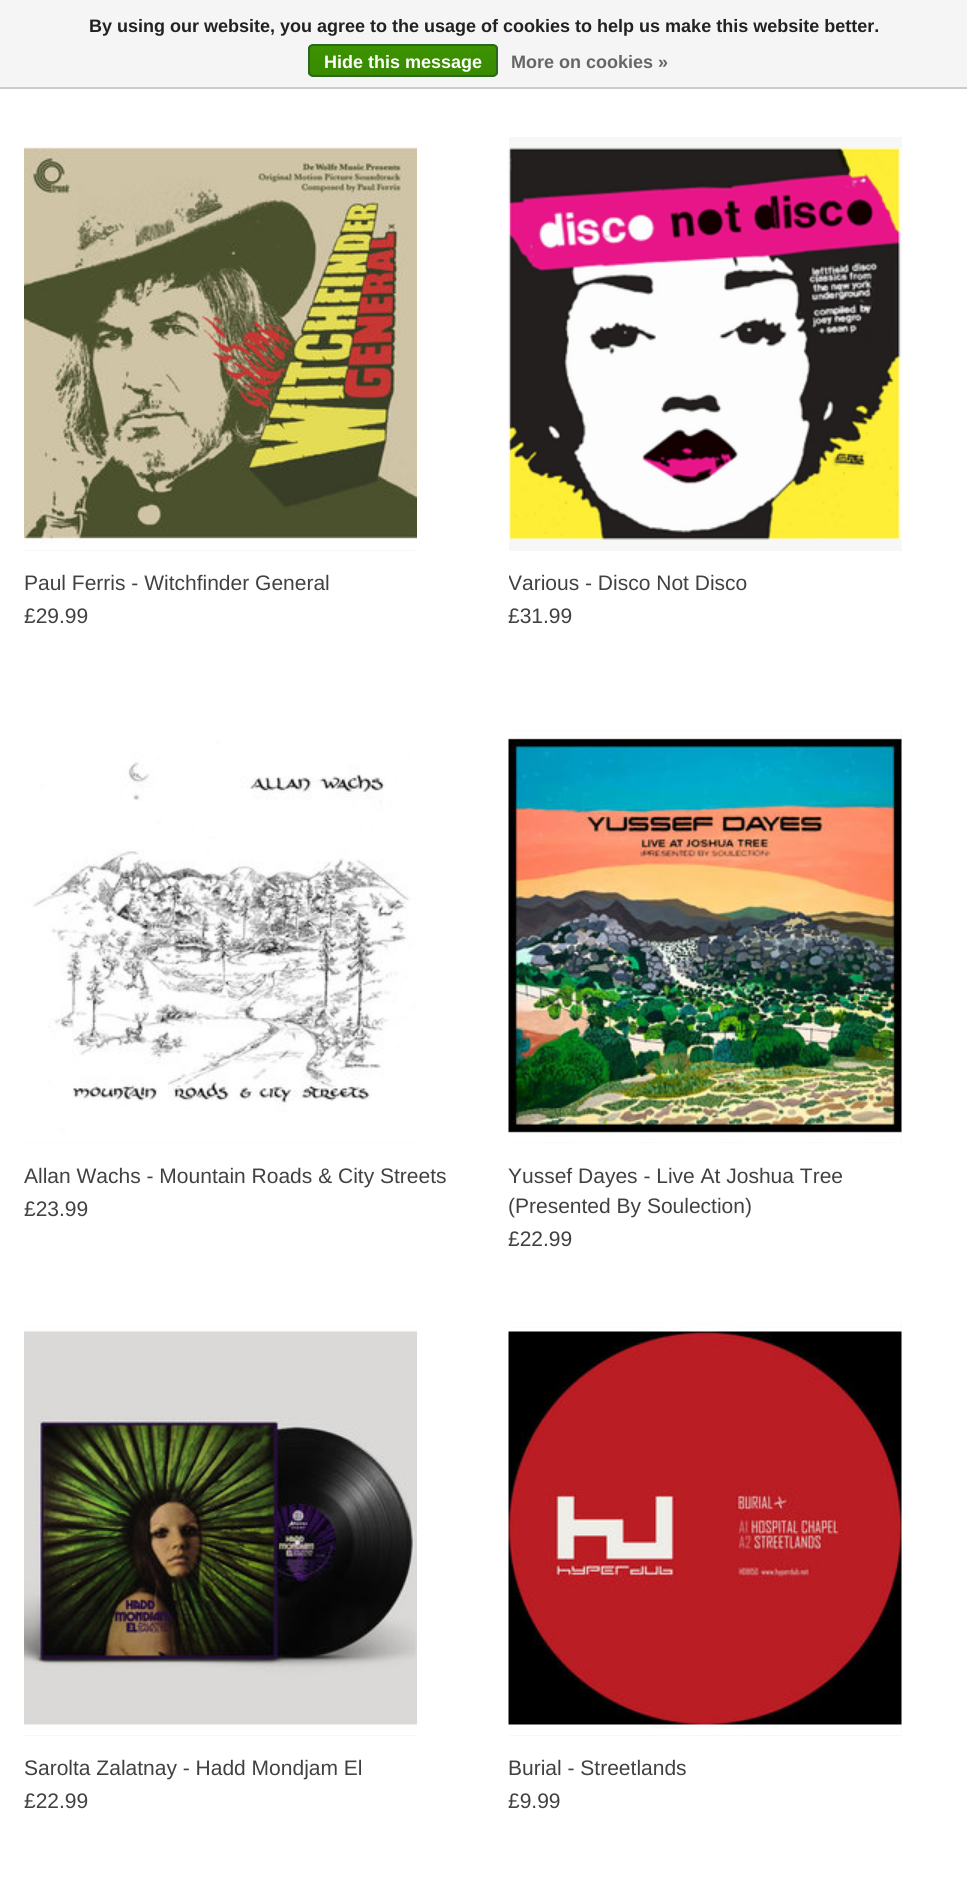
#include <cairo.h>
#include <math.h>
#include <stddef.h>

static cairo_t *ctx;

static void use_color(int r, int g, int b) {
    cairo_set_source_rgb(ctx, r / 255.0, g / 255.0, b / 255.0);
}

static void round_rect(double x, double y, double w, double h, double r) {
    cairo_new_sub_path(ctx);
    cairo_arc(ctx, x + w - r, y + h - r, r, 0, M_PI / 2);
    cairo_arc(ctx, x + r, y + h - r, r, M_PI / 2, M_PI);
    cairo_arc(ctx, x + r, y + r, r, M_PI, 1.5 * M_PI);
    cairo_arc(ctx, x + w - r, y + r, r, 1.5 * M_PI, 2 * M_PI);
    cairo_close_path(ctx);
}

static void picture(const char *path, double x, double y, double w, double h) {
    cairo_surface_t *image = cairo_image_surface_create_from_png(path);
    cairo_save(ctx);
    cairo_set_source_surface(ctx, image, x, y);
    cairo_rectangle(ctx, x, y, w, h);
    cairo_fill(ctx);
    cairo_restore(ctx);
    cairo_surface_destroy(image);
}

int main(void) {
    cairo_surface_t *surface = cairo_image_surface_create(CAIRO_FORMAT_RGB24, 967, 1882);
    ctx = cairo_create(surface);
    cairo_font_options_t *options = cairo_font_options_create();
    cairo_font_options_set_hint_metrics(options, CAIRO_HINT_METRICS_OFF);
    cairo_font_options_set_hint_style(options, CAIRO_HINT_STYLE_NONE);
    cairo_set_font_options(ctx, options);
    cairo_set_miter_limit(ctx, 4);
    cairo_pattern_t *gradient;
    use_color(255, 255, 255);
    cairo_paint(ctx);
    use_color(245, 245, 245);
    cairo_rectangle(ctx, 0, 0, 967, 87);
    cairo_fill(ctx);
    use_color(204, 204, 204);
    cairo_rectangle(ctx, 0, 87, 967, 2);
    cairo_fill(ctx);
    cairo_select_font_face(ctx, "Liberation Sans", CAIRO_FONT_SLANT_NORMAL, CAIRO_FONT_WEIGHT_BOLD);
    cairo_set_font_size(ctx, 18);
    use_color(34, 34, 34);
    cairo_move_to(ctx, 89, 32);
    cairo_show_text(ctx, "By using our website, you agree to the usage of cookies to help us make this website better.");
    cairo_save(ctx);
    round_rect(308, 44, 190, 33, 5);
    cairo_clip(ctx);
    gradient = cairo_pattern_create_linear(403, 45, 403, 75);
    cairo_pattern_add_color_stop_rgba(gradient, 0, 0.235, 0.576, 0, 1);
    cairo_pattern_add_color_stop_rgba(gradient, 1, 0.224, 0.541, 0, 1);
    cairo_set_source(ctx, gradient);
    cairo_pattern_destroy(gradient);
    cairo_rectangle(ctx, 308, 45, 190, 30);
    cairo_fill(ctx);
    cairo_restore(ctx);
    round_rect(309, 45, 188, 31, 4);
    use_color(41, 105, 29);
    cairo_stroke(ctx);
    use_color(255, 255, 255);
    cairo_move_to(ctx, 324, 68);
    cairo_show_text(ctx, "Hide this message");
    use_color(102, 102, 102);
    cairo_move_to(ctx, 511, 68);
    cairo_show_text(ctx, "More on cookies »");
    use_color(247, 247, 247);
    cairo_rectangle(ctx, 25, 550, 392, 1);
    cairo_fill(ctx);
    picture("img1.png", 24, 137, 393, 413);
    cairo_select_font_face(ctx, "Liberation Sans", CAIRO_FONT_SLANT_NORMAL, CAIRO_FONT_WEIGHT_NORMAL);
    cairo_set_font_size(ctx, 21);
    use_color(65, 65, 65);
    cairo_move_to(ctx, 24, 590);
    cairo_show_text(ctx, "Paul Ferris - Witchfinder General");
    cairo_move_to(ctx, 24, 623);
    cairo_show_text(ctx, "£29.99");
    use_color(247, 247, 247);
    cairo_rectangle(ctx, 509, 137, 393, 414);
    cairo_fill(ctx);
    picture("img2.png", 508, 147, 394, 393);
    cairo_save(ctx);
    cairo_rectangle(ctx, 509, 569, 435, 30);
    cairo_clip(ctx);
    use_color(65, 65, 65);
    cairo_move_to(ctx, 508, 590);
    cairo_show_text(ctx, "Various - Disco Not Disco");
    cairo_restore(ctx);
    use_color(65, 65, 65);
    cairo_move_to(ctx, 508, 623);
    cairo_show_text(ctx, "£31.99");
    use_color(247, 247, 247);
    cairo_rectangle(ctx, 25, 1142, 392, 1);
    cairo_fill(ctx);
    picture("img3.png", 25, 730, 392, 413);
    use_color(65, 65, 65);
    cairo_move_to(ctx, 24, 1183);
    cairo_show_text(ctx, "Allan Wachs - Mountain Roads & City Streets");
    cairo_move_to(ctx, 24, 1216);
    cairo_show_text(ctx, "£23.99");
    use_color(247, 247, 247);
    cairo_rectangle(ctx, 509, 730, 393, 413);
    cairo_fill(ctx);
    picture("img4.png", 508, 730, 394, 413);
    use_color(65, 65, 65);
    cairo_move_to(ctx, 508, 1183);
    cairo_show_text(ctx, "Yussef Dayes - Live At Joshua Tree");
    cairo_move_to(ctx, 508, 1213);
    cairo_show_text(ctx, "(Presented By Soulection)");
    cairo_move_to(ctx, 508, 1246);
    cairo_show_text(ctx, "£22.99");
    use_color(247, 247, 247);
    cairo_rectangle(ctx, 25, 1735, 392, 1);
    cairo_fill(ctx);
    picture("img5.png", 24, 1322, 393, 413);
    use_color(65, 65, 65);
    cairo_move_to(ctx, 24, 1775);
    cairo_show_text(ctx, "Sarolta Zalatnay - Hadd Mondjam El");
    cairo_move_to(ctx, 24, 1808);
    cairo_show_text(ctx, "£22.99");
    use_color(247, 247, 247);
    cairo_rectangle(ctx, 509, 1322, 393, 414);
    cairo_fill(ctx);
    picture("img6.png", 508, 1321, 394, 414);
    use_color(65, 65, 65);
    cairo_move_to(ctx, 508, 1775);
    cairo_show_text(ctx, "Burial - Streetlands");
    cairo_move_to(ctx, 508, 1808);
    cairo_show_text(ctx, "£9.99");
    cairo_surface_write_to_png(surface, "result.png");
    cairo_font_options_destroy(options);
    cairo_destroy(ctx);
    cairo_surface_destroy(surface);
    return 0;
}
